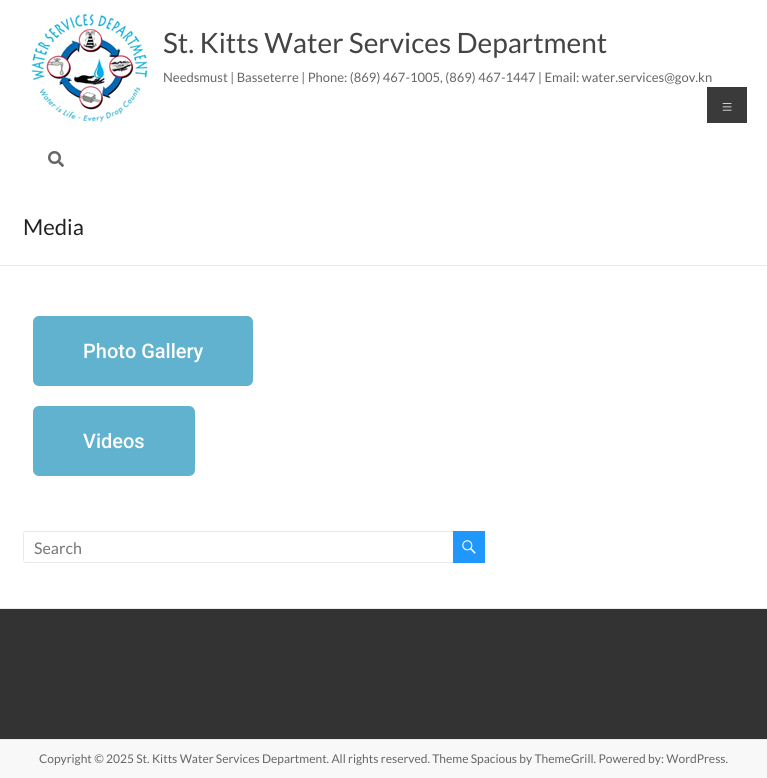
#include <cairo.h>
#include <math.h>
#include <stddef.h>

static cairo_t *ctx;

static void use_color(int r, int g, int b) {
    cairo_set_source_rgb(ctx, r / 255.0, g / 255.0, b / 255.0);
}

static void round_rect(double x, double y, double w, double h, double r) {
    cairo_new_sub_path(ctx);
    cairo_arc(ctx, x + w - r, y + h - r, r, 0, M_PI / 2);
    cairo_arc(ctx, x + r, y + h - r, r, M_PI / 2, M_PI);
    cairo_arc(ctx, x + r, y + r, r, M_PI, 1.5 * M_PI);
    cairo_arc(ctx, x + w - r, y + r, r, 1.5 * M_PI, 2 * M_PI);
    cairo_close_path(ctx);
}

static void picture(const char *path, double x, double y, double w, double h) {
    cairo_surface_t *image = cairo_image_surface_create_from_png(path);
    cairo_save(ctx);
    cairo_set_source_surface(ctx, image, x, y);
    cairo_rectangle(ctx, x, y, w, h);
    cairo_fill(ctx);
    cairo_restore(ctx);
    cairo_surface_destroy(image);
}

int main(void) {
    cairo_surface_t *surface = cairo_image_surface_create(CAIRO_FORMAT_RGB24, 767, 778);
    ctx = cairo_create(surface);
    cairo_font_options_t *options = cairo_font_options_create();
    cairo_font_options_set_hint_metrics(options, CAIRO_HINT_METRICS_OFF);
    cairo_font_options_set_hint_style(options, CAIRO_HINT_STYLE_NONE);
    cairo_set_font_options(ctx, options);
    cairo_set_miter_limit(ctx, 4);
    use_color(255, 255, 255);
    cairo_paint(ctx);
    picture("img1.png", 30, 11, 119, 112);
    cairo_select_font_face(ctx, "Lato", CAIRO_FONT_SLANT_NORMAL, CAIRO_FONT_WEIGHT_NORMAL);
    cairo_set_font_size(ctx, 28);
    use_color(68, 68, 68);
    cairo_move_to(ctx, 163, 53);
    cairo_show_text(ctx, "St. Kitts Water Services Department");
    cairo_set_font_size(ctx, 13);
    use_color(102, 102, 102);
    cairo_move_to(ctx, 163, 82);
    cairo_show_text(ctx, "Needsmust | Basseterre | Phone: (869) 467-1005, (869) 467-1447 | Email: water.services@gov.kn");
    use_color(58, 58, 58);
    cairo_rectangle(ctx, 707, 87, 40, 36);
    cairo_fill(ctx);
    cairo_select_font_face(ctx, "Lato Light", CAIRO_FONT_SLANT_NORMAL, CAIRO_FONT_WEIGHT_NORMAL);
    cairo_set_font_size(ctx, 21);
    use_color(255, 255, 255);
    cairo_move_to(ctx, 721, 114);
    cairo_show_text(ctx, "≡");
    picture("img2.png", 48, 151, 16, 16);
    use_color(234, 234, 234);
    cairo_rectangle(ctx, 0, 265, 767, 1);
    cairo_fill(ctx);
    cairo_select_font_face(ctx, "Lato", CAIRO_FONT_SLANT_NORMAL, CAIRO_FONT_WEIGHT_NORMAL);
    cairo_set_font_size(ctx, 22);
    use_color(34, 34, 34);
    cairo_move_to(ctx, 23, 235);
    cairo_show_text(ctx, "Media");
    use_color(97, 178, 206);
    round_rect(33, 316, 220, 70, 6);
    cairo_fill(ctx);
    cairo_select_font_face(ctx, "Roboto Medium", CAIRO_FONT_SLANT_NORMAL, CAIRO_FONT_WEIGHT_NORMAL);
    cairo_set_font_size(ctx, 20);
    use_color(255, 255, 255);
    cairo_move_to(ctx, 83, 358);
    cairo_show_text(ctx, "Photo Gallery");
    use_color(97, 178, 206);
    round_rect(33, 406, 162, 70, 6);
    cairo_fill(ctx);
    use_color(255, 255, 255);
    cairo_move_to(ctx, 83, 448);
    cairo_show_text(ctx, "Videos");
    round_rect(23.5, 531.5, 432, 31, 2.5);
    use_color(234, 234, 234);
    cairo_set_line_width(ctx, 1);
    cairo_stroke(ctx);
    cairo_select_font_face(ctx, "Lato", CAIRO_FONT_SLANT_NORMAL, CAIRO_FONT_WEIGHT_NORMAL);
    cairo_set_font_size(ctx, 16);
    use_color(117, 117, 117);
    cairo_move_to(ctx, 34, 554);
    cairo_show_text(ctx, "Search");
    use_color(32, 151, 252);
    cairo_rectangle(ctx, 453, 531, 32, 32);
    cairo_fill(ctx);
    picture("img3.png", 462, 540, 14, 14);
    use_color(51, 51, 51);
    cairo_rectangle(ctx, 0, 609, 767, 130);
    cairo_fill(ctx);
    use_color(234, 234, 234);
    cairo_rectangle(ctx, 0, 608, 767, 1);
    cairo_fill(ctx);
    use_color(248, 248, 248);
    cairo_rectangle(ctx, 0, 740, 767, 38);
    cairo_fill(ctx);
    use_color(234, 234, 234);
    cairo_rectangle(ctx, 0, 739, 767, 1);
    cairo_fill(ctx);
    cairo_set_font_size(ctx, 12);
    use_color(102, 102, 102);
    cairo_move_to(ctx, 39, 763);
    cairo_show_text(ctx, "Copyright © 2025 St. Kitts Water Services Department. All rights reserved. Theme Spacious by ThemeGrill. Powered by: WordPress.");
    cairo_surface_write_to_png(surface, "result.png");
    cairo_font_options_destroy(options);
    cairo_destroy(ctx);
    cairo_surface_destroy(surface);
    return 0;
}
